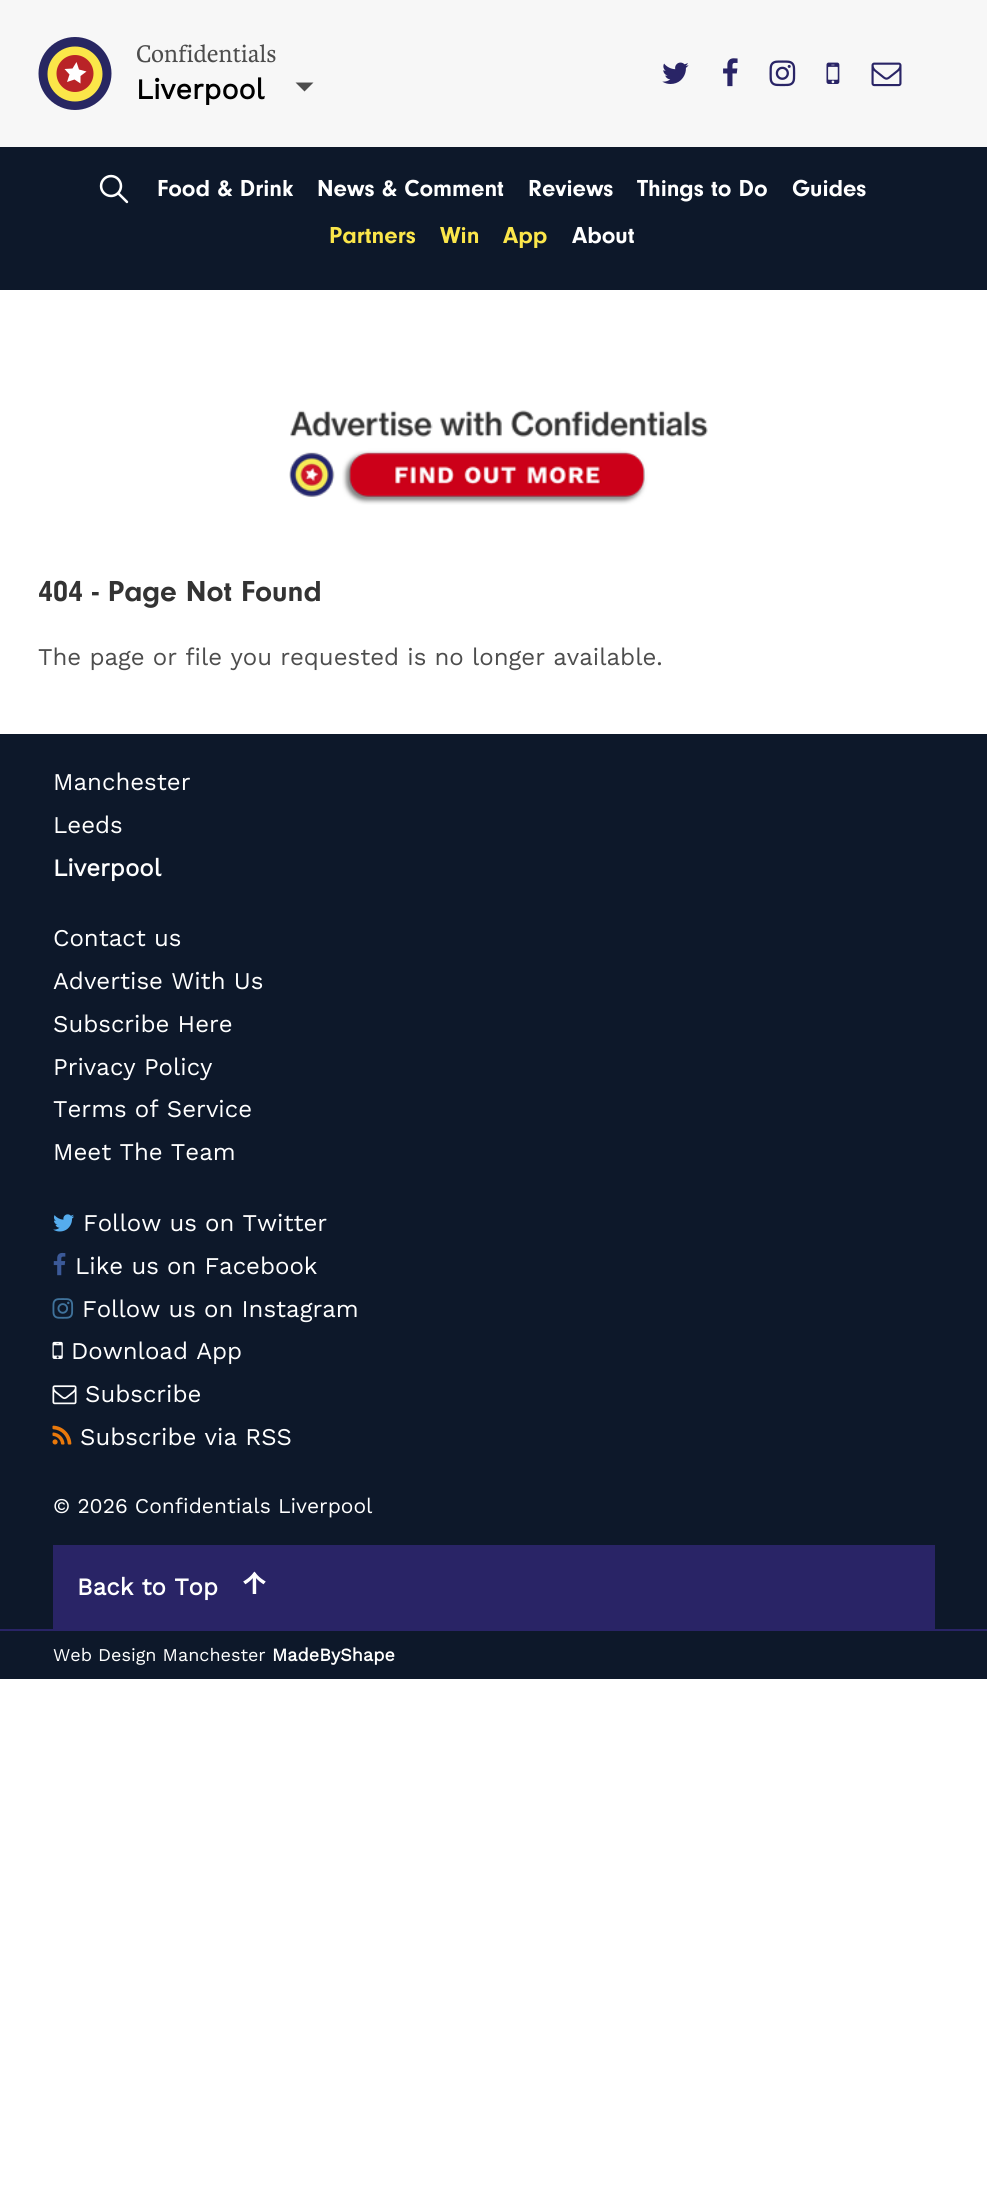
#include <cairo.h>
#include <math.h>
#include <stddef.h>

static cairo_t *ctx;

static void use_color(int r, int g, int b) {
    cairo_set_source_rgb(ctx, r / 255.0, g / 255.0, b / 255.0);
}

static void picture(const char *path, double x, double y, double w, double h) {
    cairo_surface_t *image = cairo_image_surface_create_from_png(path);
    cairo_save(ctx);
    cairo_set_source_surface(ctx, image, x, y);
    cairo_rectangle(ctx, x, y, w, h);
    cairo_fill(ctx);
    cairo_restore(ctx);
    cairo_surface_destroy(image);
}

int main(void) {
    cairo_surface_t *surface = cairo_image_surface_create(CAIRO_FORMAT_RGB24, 987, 2209);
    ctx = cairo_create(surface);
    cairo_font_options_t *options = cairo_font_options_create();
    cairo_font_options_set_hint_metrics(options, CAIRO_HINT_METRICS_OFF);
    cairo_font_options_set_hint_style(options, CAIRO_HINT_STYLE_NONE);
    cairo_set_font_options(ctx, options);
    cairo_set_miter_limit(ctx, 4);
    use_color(255, 255, 255);
    cairo_paint(ctx);
    use_color(247, 247, 247);
    cairo_rectangle(ctx, 0, 0, 987, 147);
    cairo_fill(ctx);
    use_color(40, 39, 98);
    cairo_arc(ctx, 75, 73.5, 36.5, 0, 2 * M_PI);
    cairo_fill(ctx);
    use_color(251, 230, 73);
    cairo_arc(ctx, 75, 74, 27.5, 0, 2 * M_PI);
    cairo_fill(ctx);
    use_color(185, 35, 39);
    cairo_arc(ctx, 75, 73.5, 18.5, 0, 2 * M_PI);
    cairo_fill(ctx);
    use_color(255, 255, 255);
    cairo_new_path(ctx);
    cairo_move_to(ctx, 72.5, 68.5);
    cairo_line_to(ctx, 76.5, 62);
    cairo_line_to(ctx, 79, 69.5);
    cairo_line_to(ctx, 86.5, 71.5);
    cairo_line_to(ctx, 80.5, 76);
    cairo_line_to(ctx, 80.5, 83.5);
    cairo_line_to(ctx, 74.5, 79.5);
    cairo_line_to(ctx, 67, 82);
    cairo_line_to(ctx, 69.5, 74.5);
    cairo_line_to(ctx, 64.5, 69);
    cairo_fill(ctx);
    cairo_select_font_face(ctx, "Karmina", CAIRO_FONT_SLANT_NORMAL, CAIRO_FONT_WEIGHT_NORMAL);
    cairo_set_font_size(ctx, 25.5);
    use_color(77, 77, 77);
    cairo_move_to(ctx, 136, 62);
    cairo_show_text(ctx, "Confidentials");
    cairo_select_font_face(ctx, "Work Sans", CAIRO_FONT_SLANT_NORMAL, CAIRO_FONT_WEIGHT_BOLD);
    cairo_set_font_size(ctx, 28.5);
    use_color(0, 0, 0);
    cairo_move_to(ctx, 136, 99);
    cairo_show_text(ctx, "Liverpool");
    use_color(77, 77, 77);
    cairo_new_path(ctx);
    cairo_move_to(ctx, 295.5, 82.5);
    cairo_line_to(ctx, 313.5, 82.5);
    cairo_line_to(ctx, 304.5, 91.5);
    cairo_close_path(ctx);
    cairo_fill(ctx);
    picture("img1.png", 662, 62, 27, 22);
    picture("img2.png", 723, 58, 15, 29);
    picture("img3.png", 769, 60, 27, 27);
    picture("img4.png", 826, 62, 14, 22);
    picture("img5.png", 871, 62, 31, 25);
    use_color(13, 24, 42);
    cairo_rectangle(ctx, 0, 147, 987, 143);
    cairo_fill(ctx);
    picture("img6.png", 99, 174, 30, 30);
    cairo_select_font_face(ctx, "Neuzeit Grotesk", CAIRO_FONT_SLANT_NORMAL, CAIRO_FONT_WEIGHT_BOLD);
    cairo_set_font_size(ctx, 24);
    use_color(255, 255, 255);
    cairo_move_to(ctx, 157, 196);
    cairo_show_text(ctx, "Food & Drink");
    cairo_move_to(ctx, 317, 196);
    cairo_show_text(ctx, "News & Comment");
    cairo_move_to(ctx, 528, 196);
    cairo_show_text(ctx, "Reviews");
    cairo_move_to(ctx, 637, 196);
    cairo_show_text(ctx, "Things to Do");
    cairo_move_to(ctx, 792, 196);
    cairo_show_text(ctx, "Guides");
    use_color(251, 230, 74);
    cairo_move_to(ctx, 329, 243);
    cairo_show_text(ctx, "Partners");
    cairo_move_to(ctx, 440, 243);
    cairo_show_text(ctx, "Win");
    cairo_move_to(ctx, 503, 243);
    cairo_show_text(ctx, "App");
    use_color(255, 255, 255);
    cairo_move_to(ctx, 572, 243);
    cairo_show_text(ctx, "About");
    picture("img7.png", 289, 410, 419, 95);
    cairo_set_font_size(ctx, 30);
    use_color(51, 51, 51);
    cairo_move_to(ctx, 38, 601);
    cairo_show_text(ctx, "404 - Page Not Found");
    cairo_select_font_face(ctx, "Work Sans", CAIRO_FONT_SLANT_NORMAL, CAIRO_FONT_WEIGHT_NORMAL);
    cairo_set_font_size(ctx, 24);
    use_color(77, 77, 77);
    cairo_move_to(ctx, 38, 665);
    cairo_show_text(ctx, "The page or file you requested is no longer available.");
    use_color(13, 24, 42);
    cairo_rectangle(ctx, 0, 734, 987, 895);
    cairo_fill(ctx);
    use_color(255, 255, 255);
    cairo_move_to(ctx, 53, 790);
    cairo_show_text(ctx, "Manchester");
    cairo_move_to(ctx, 53, 833);
    cairo_show_text(ctx, "Leeds");
    cairo_select_font_face(ctx, "Work Sans", CAIRO_FONT_SLANT_NORMAL, CAIRO_FONT_WEIGHT_BOLD);
    cairo_move_to(ctx, 53, 876);
    cairo_show_text(ctx, "Liverpool");
    cairo_select_font_face(ctx, "Work Sans", CAIRO_FONT_SLANT_NORMAL, CAIRO_FONT_WEIGHT_NORMAL);
    cairo_move_to(ctx, 53, 946);
    cairo_show_text(ctx, "Contact us");
    cairo_move_to(ctx, 53, 989);
    cairo_show_text(ctx, "Advertise With Us");
    cairo_move_to(ctx, 53, 1032);
    cairo_show_text(ctx, "Subscribe Here");
    cairo_move_to(ctx, 53, 1075);
    cairo_show_text(ctx, "Privacy Policy");
    cairo_move_to(ctx, 53, 1117);
    cairo_show_text(ctx, "Terms of Service");
    cairo_move_to(ctx, 53, 1160);
    cairo_show_text(ctx, "Meet The Team");
    picture("img8.png", 53, 1214, 21, 18);
    cairo_move_to(ctx, 83, 1231);
    cairo_show_text(ctx, "Follow us on Twitter");
    picture("img9.png", 53, 1252, 13, 24);
    cairo_move_to(ctx, 75, 1274);
    cairo_show_text(ctx, "Like us on Facebook");
    picture("img10.png", 52, 1298, 22, 21);
    cairo_move_to(ctx, 82, 1317);
    cairo_show_text(ctx, "Follow us on Instagram");
    picture("img11.png", 52, 1341, 11, 18);
    cairo_move_to(ctx, 71, 1359);
    cairo_show_text(ctx, "Download App");
    picture("img12.png", 52, 1385, 25, 20);
    cairo_move_to(ctx, 85, 1402);
    cairo_show_text(ctx, "Subscribe");
    picture("img13.png", 52, 1425, 20, 20);
    cairo_move_to(ctx, 80, 1445);
    cairo_show_text(ctx, "Subscribe via RSS");
    cairo_set_font_size(ctx, 21);
    cairo_move_to(ctx, 53, 1513);
    cairo_show_text(ctx, "© 2026 Confidentials Liverpool");
    use_color(41, 36, 102);
    cairo_rectangle(ctx, 53, 1545, 882, 84);
    cairo_fill(ctx);
    cairo_select_font_face(ctx, "Work Sans", CAIRO_FONT_SLANT_NORMAL, CAIRO_FONT_WEIGHT_BOLD);
    cairo_set_font_size(ctx, 24);
    use_color(255, 255, 255);
    cairo_move_to(ctx, 77, 1595);
    cairo_show_text(ctx, "Back to Top");
    cairo_set_font_size(ctx, 32);
    cairo_move_to(ctx, 242, 1594);
    cairo_show_text(ctx, "↑");
    use_color(13, 24, 42);
    cairo_rectangle(ctx, 0, 1631, 987, 48);
    cairo_fill(ctx);
    use_color(41, 36, 102);
    cairo_rectangle(ctx, 0, 1629, 987, 2);
    cairo_fill(ctx);
    cairo_select_font_face(ctx, "Work Sans", CAIRO_FONT_SLANT_NORMAL, CAIRO_FONT_WEIGHT_NORMAL);
    cairo_set_font_size(ctx, 18);
    use_color(255, 255, 255);
    cairo_move_to(ctx, 53, 1661);
    cairo_show_text(ctx, "Web Design Manchester");
    cairo_select_font_face(ctx, "Work Sans", CAIRO_FONT_SLANT_NORMAL, CAIRO_FONT_WEIGHT_BOLD);
    cairo_move_to(ctx, 272, 1661);
    cairo_show_text(ctx, "MadeByShape");
    cairo_surface_write_to_png(surface, "result.png");
    cairo_font_options_destroy(options);
    cairo_destroy(ctx);
    cairo_surface_destroy(surface);
    return 0;
}
